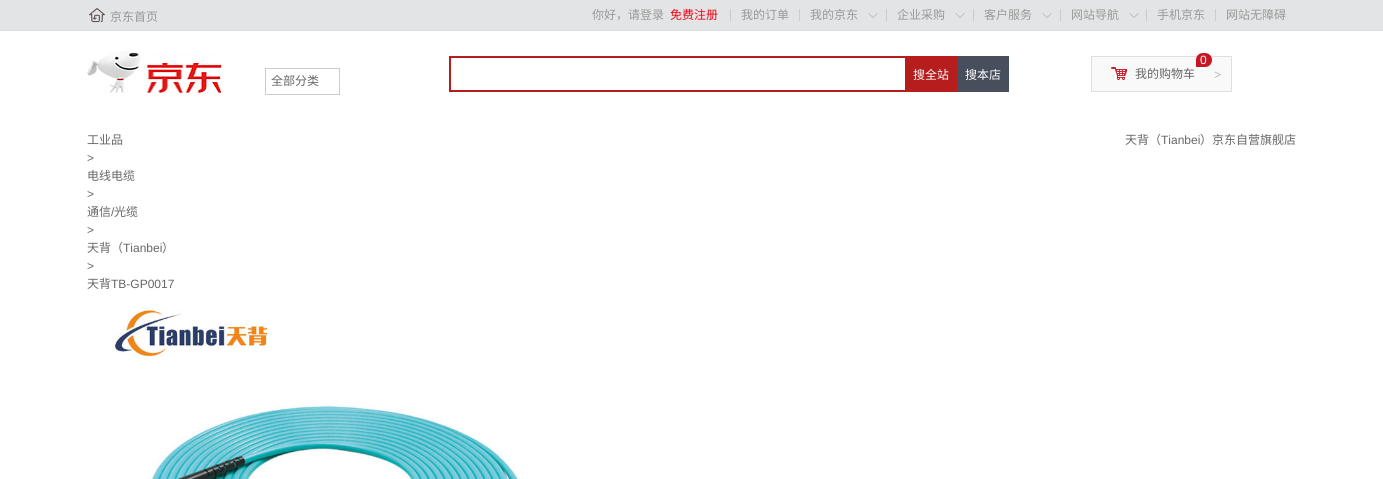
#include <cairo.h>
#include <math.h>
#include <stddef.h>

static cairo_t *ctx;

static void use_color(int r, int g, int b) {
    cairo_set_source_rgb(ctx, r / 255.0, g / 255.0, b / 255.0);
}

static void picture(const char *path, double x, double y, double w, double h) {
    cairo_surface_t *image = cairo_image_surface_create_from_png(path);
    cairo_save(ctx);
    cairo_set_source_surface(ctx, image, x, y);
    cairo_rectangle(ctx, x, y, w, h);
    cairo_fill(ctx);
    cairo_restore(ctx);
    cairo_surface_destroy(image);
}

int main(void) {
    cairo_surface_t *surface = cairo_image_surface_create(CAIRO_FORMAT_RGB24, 1383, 479);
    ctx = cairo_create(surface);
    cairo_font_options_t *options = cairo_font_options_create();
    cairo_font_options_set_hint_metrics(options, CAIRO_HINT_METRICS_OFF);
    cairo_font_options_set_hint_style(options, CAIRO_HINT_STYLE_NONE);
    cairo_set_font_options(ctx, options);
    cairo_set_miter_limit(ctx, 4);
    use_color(255, 255, 255);
    cairo_paint(ctx);
    use_color(227, 228, 229);
    cairo_rectangle(ctx, 0, 0, 1383, 30);
    cairo_fill(ctx);
    use_color(221, 221, 221);
    cairo_rectangle(ctx, 0, 30, 1383, 1);
    cairo_fill(ctx);
    picture("img1.png", 89, 8, 16, 15);
    cairo_select_font_face(ctx, "Noto Sans CJK SC", CAIRO_FONT_SLANT_NORMAL, CAIRO_FONT_WEIGHT_NORMAL);
    cairo_set_font_size(ctx, 12);
    use_color(153, 153, 153);
    cairo_move_to(ctx, 110, 21);
    cairo_show_text(ctx, "京东首页");
    cairo_move_to(ctx, 592, 19);
    cairo_show_text(ctx, "你好，请登录");
    use_color(243, 2, 19);
    cairo_move_to(ctx, 670, 19);
    cairo_show_text(ctx, "免费注册");
    use_color(204, 204, 204);
    cairo_rectangle(ctx, 730, 9, 1, 12);
    cairo_fill(ctx);
    use_color(153, 153, 153);
    cairo_move_to(ctx, 741, 19);
    cairo_show_text(ctx, "我的订单");
    use_color(204, 204, 204);
    cairo_rectangle(ctx, 799, 9, 1, 12);
    cairo_fill(ctx);
    use_color(153, 153, 153);
    cairo_move_to(ctx, 810, 19);
    cairo_show_text(ctx, "我的京东");
    picture("img2.png", 868, 13, 10, 5);
    use_color(204, 204, 204);
    cairo_rectangle(ctx, 886, 9, 1, 12);
    cairo_fill(ctx);
    use_color(153, 153, 153);
    cairo_move_to(ctx, 897, 19);
    cairo_show_text(ctx, "企业采购");
    picture("img2.png", 955, 13, 10, 5);
    use_color(204, 204, 204);
    cairo_rectangle(ctx, 973, 9, 1, 12);
    cairo_fill(ctx);
    use_color(153, 153, 153);
    cairo_move_to(ctx, 984, 19);
    cairo_show_text(ctx, "客户服务");
    picture("img2.png", 1042, 13, 10, 5);
    use_color(204, 204, 204);
    cairo_rectangle(ctx, 1060, 9, 1, 12);
    cairo_fill(ctx);
    use_color(153, 153, 153);
    cairo_move_to(ctx, 1071, 19);
    cairo_show_text(ctx, "网站导航");
    picture("img2.png", 1129, 13, 10, 5);
    use_color(204, 204, 204);
    cairo_rectangle(ctx, 1146, 9, 1, 12);
    cairo_fill(ctx);
    use_color(153, 153, 153);
    cairo_move_to(ctx, 1157, 19);
    cairo_show_text(ctx, "手机京东");
    use_color(204, 204, 204);
    cairo_rectangle(ctx, 1215, 9, 1, 12);
    cairo_fill(ctx);
    use_color(153, 153, 153);
    cairo_move_to(ctx, 1226, 19);
    cairo_show_text(ctx, "网站无障碍");
    picture("img3.png", 87, 51, 135, 42);
    cairo_rectangle(ctx, 265.5, 68.5, 74, 26);
    use_color(204, 204, 204);
    cairo_set_line_width(ctx, 1);
    cairo_stroke(ctx);
    use_color(102, 102, 102);
    cairo_move_to(ctx, 271, 85);
    cairo_show_text(ctx, "全部分类");
    use_color(182, 29, 29);
    cairo_rectangle(ctx, 449, 56, 456, 2);
    cairo_fill(ctx);
    cairo_rectangle(ctx, 449, 90, 456, 2);
    cairo_fill(ctx);
    cairo_rectangle(ctx, 449, 56, 2, 36);
    cairo_fill(ctx);
    cairo_rectangle(ctx, 905, 56, 52, 36);
    cairo_fill(ctx);
    use_color(255, 255, 255);
    cairo_move_to(ctx, 913, 79);
    cairo_show_text(ctx, "搜全站");
    use_color(71, 78, 92);
    cairo_rectangle(ctx, 957, 56, 52, 36);
    cairo_fill(ctx);
    use_color(255, 255, 255);
    cairo_move_to(ctx, 965, 79);
    cairo_show_text(ctx, "搜本店");
    use_color(249, 249, 249);
    cairo_rectangle(ctx, 1091.5, 56.5, 140, 35);
    cairo_fill_preserve(ctx);
    use_color(223, 223, 223);
    cairo_stroke(ctx);
    use_color(200, 22, 35);
    cairo_new_path(ctx);
    cairo_move_to(ctx, 1203, 53);
    cairo_line_to(ctx, 1205, 53);
    cairo_curve_to(ctx, 1209, 53, 1212, 56, 1212, 60);
    cairo_curve_to(ctx, 1212, 64, 1209, 67, 1205, 67);
    cairo_line_to(ctx, 1196, 67);
    cairo_line_to(ctx, 1196, 60);
    cairo_curve_to(ctx, 1196, 56, 1199, 53, 1203, 53);
    cairo_close_path(ctx);
    cairo_fill(ctx);
    cairo_select_font_face(ctx, "Liberation Sans", CAIRO_FONT_SLANT_NORMAL, CAIRO_FONT_WEIGHT_NORMAL);
    use_color(255, 255, 255);
    cairo_move_to(ctx, 1200, 64);
    cairo_show_text(ctx, "0");
    picture("img4.png", 1111, 67, 16, 13);
    cairo_select_font_face(ctx, "Noto Sans CJK SC", CAIRO_FONT_SLANT_NORMAL, CAIRO_FONT_WEIGHT_NORMAL);
    use_color(102, 102, 102);
    cairo_move_to(ctx, 1135, 78);
    cairo_show_text(ctx, "我的购物车");
    cairo_select_font_face(ctx, "Liberation Serif", CAIRO_FONT_SLANT_NORMAL, CAIRO_FONT_WEIGHT_NORMAL);
    cairo_set_font_size(ctx, 13);
    use_color(153, 153, 153);
    cairo_move_to(ctx, 1214, 79);
    cairo_show_text(ctx, ">");
    cairo_select_font_face(ctx, "Noto Sans CJK SC", CAIRO_FONT_SLANT_NORMAL, CAIRO_FONT_WEIGHT_NORMAL);
    cairo_set_font_size(ctx, 12);
    use_color(102, 102, 102);
    cairo_move_to(ctx, 87, 144);
    cairo_show_text(ctx, "工业品");
    cairo_select_font_face(ctx, "Liberation Sans", CAIRO_FONT_SLANT_NORMAL, CAIRO_FONT_WEIGHT_NORMAL);
    cairo_move_to(ctx, 87, 162);
    cairo_show_text(ctx, ">");
    cairo_select_font_face(ctx, "Noto Sans CJK SC", CAIRO_FONT_SLANT_NORMAL, CAIRO_FONT_WEIGHT_NORMAL);
    cairo_move_to(ctx, 87, 180);
    cairo_show_text(ctx, "电线电缆");
    cairo_select_font_face(ctx, "Liberation Sans", CAIRO_FONT_SLANT_NORMAL, CAIRO_FONT_WEIGHT_NORMAL);
    cairo_move_to(ctx, 87, 198);
    cairo_show_text(ctx, ">");
    cairo_select_font_face(ctx, "Noto Sans CJK SC", CAIRO_FONT_SLANT_NORMAL, CAIRO_FONT_WEIGHT_NORMAL);
    cairo_move_to(ctx, 87, 216);
    cairo_show_text(ctx, "通信");
    cairo_select_font_face(ctx, "Liberation Sans", CAIRO_FONT_SLANT_NORMAL, CAIRO_FONT_WEIGHT_NORMAL);
    cairo_move_to(ctx, 111, 216);
    cairo_show_text(ctx, "/");
    cairo_select_font_face(ctx, "Noto Sans CJK SC", CAIRO_FONT_SLANT_NORMAL, CAIRO_FONT_WEIGHT_NORMAL);
    cairo_move_to(ctx, 114, 216);
    cairo_show_text(ctx, "光缆");
    cairo_select_font_face(ctx, "Liberation Sans", CAIRO_FONT_SLANT_NORMAL, CAIRO_FONT_WEIGHT_NORMAL);
    cairo_move_to(ctx, 87, 234);
    cairo_show_text(ctx, ">");
    cairo_select_font_face(ctx, "Noto Sans CJK SC", CAIRO_FONT_SLANT_NORMAL, CAIRO_FONT_WEIGHT_NORMAL);
    cairo_move_to(ctx, 87, 252);
    cairo_show_text(ctx, "天背（");
    cairo_select_font_face(ctx, "Liberation Sans", CAIRO_FONT_SLANT_NORMAL, CAIRO_FONT_WEIGHT_NORMAL);
    cairo_move_to(ctx, 123, 252);
    cairo_show_text(ctx, "Tianbei");
    cairo_select_font_face(ctx, "Noto Sans CJK SC", CAIRO_FONT_SLANT_NORMAL, CAIRO_FONT_WEIGHT_NORMAL);
    cairo_move_to(ctx, 162, 252);
    cairo_show_text(ctx, "）");
    cairo_select_font_face(ctx, "Liberation Sans", CAIRO_FONT_SLANT_NORMAL, CAIRO_FONT_WEIGHT_NORMAL);
    cairo_move_to(ctx, 87, 270);
    cairo_show_text(ctx, ">");
    cairo_select_font_face(ctx, "Noto Sans CJK SC", CAIRO_FONT_SLANT_NORMAL, CAIRO_FONT_WEIGHT_NORMAL);
    cairo_move_to(ctx, 87, 288);
    cairo_show_text(ctx, "天背");
    cairo_select_font_face(ctx, "Liberation Sans", CAIRO_FONT_SLANT_NORMAL, CAIRO_FONT_WEIGHT_NORMAL);
    cairo_move_to(ctx, 111, 288);
    cairo_show_text(ctx, "TB-GP0017");
    cairo_select_font_face(ctx, "Noto Sans CJK SC", CAIRO_FONT_SLANT_NORMAL, CAIRO_FONT_WEIGHT_NORMAL);
    cairo_move_to(ctx, 1125, 144);
    cairo_show_text(ctx, "天背（");
    cairo_select_font_face(ctx, "Liberation Sans", CAIRO_FONT_SLANT_NORMAL, CAIRO_FONT_WEIGHT_NORMAL);
    cairo_move_to(ctx, 1161, 144);
    cairo_show_text(ctx, "Tianbei");
    cairo_select_font_face(ctx, "Noto Sans CJK SC", CAIRO_FONT_SLANT_NORMAL, CAIRO_FONT_WEIGHT_NORMAL);
    cairo_move_to(ctx, 1200, 144);
    cairo_show_text(ctx, "）京东自营旗舰店");
    picture("img5.png", 112, 307, 408, 172);
    cairo_surface_write_to_png(surface, "result.png");
    cairo_font_options_destroy(options);
    cairo_destroy(ctx);
    cairo_surface_destroy(surface);
    return 0;
}
